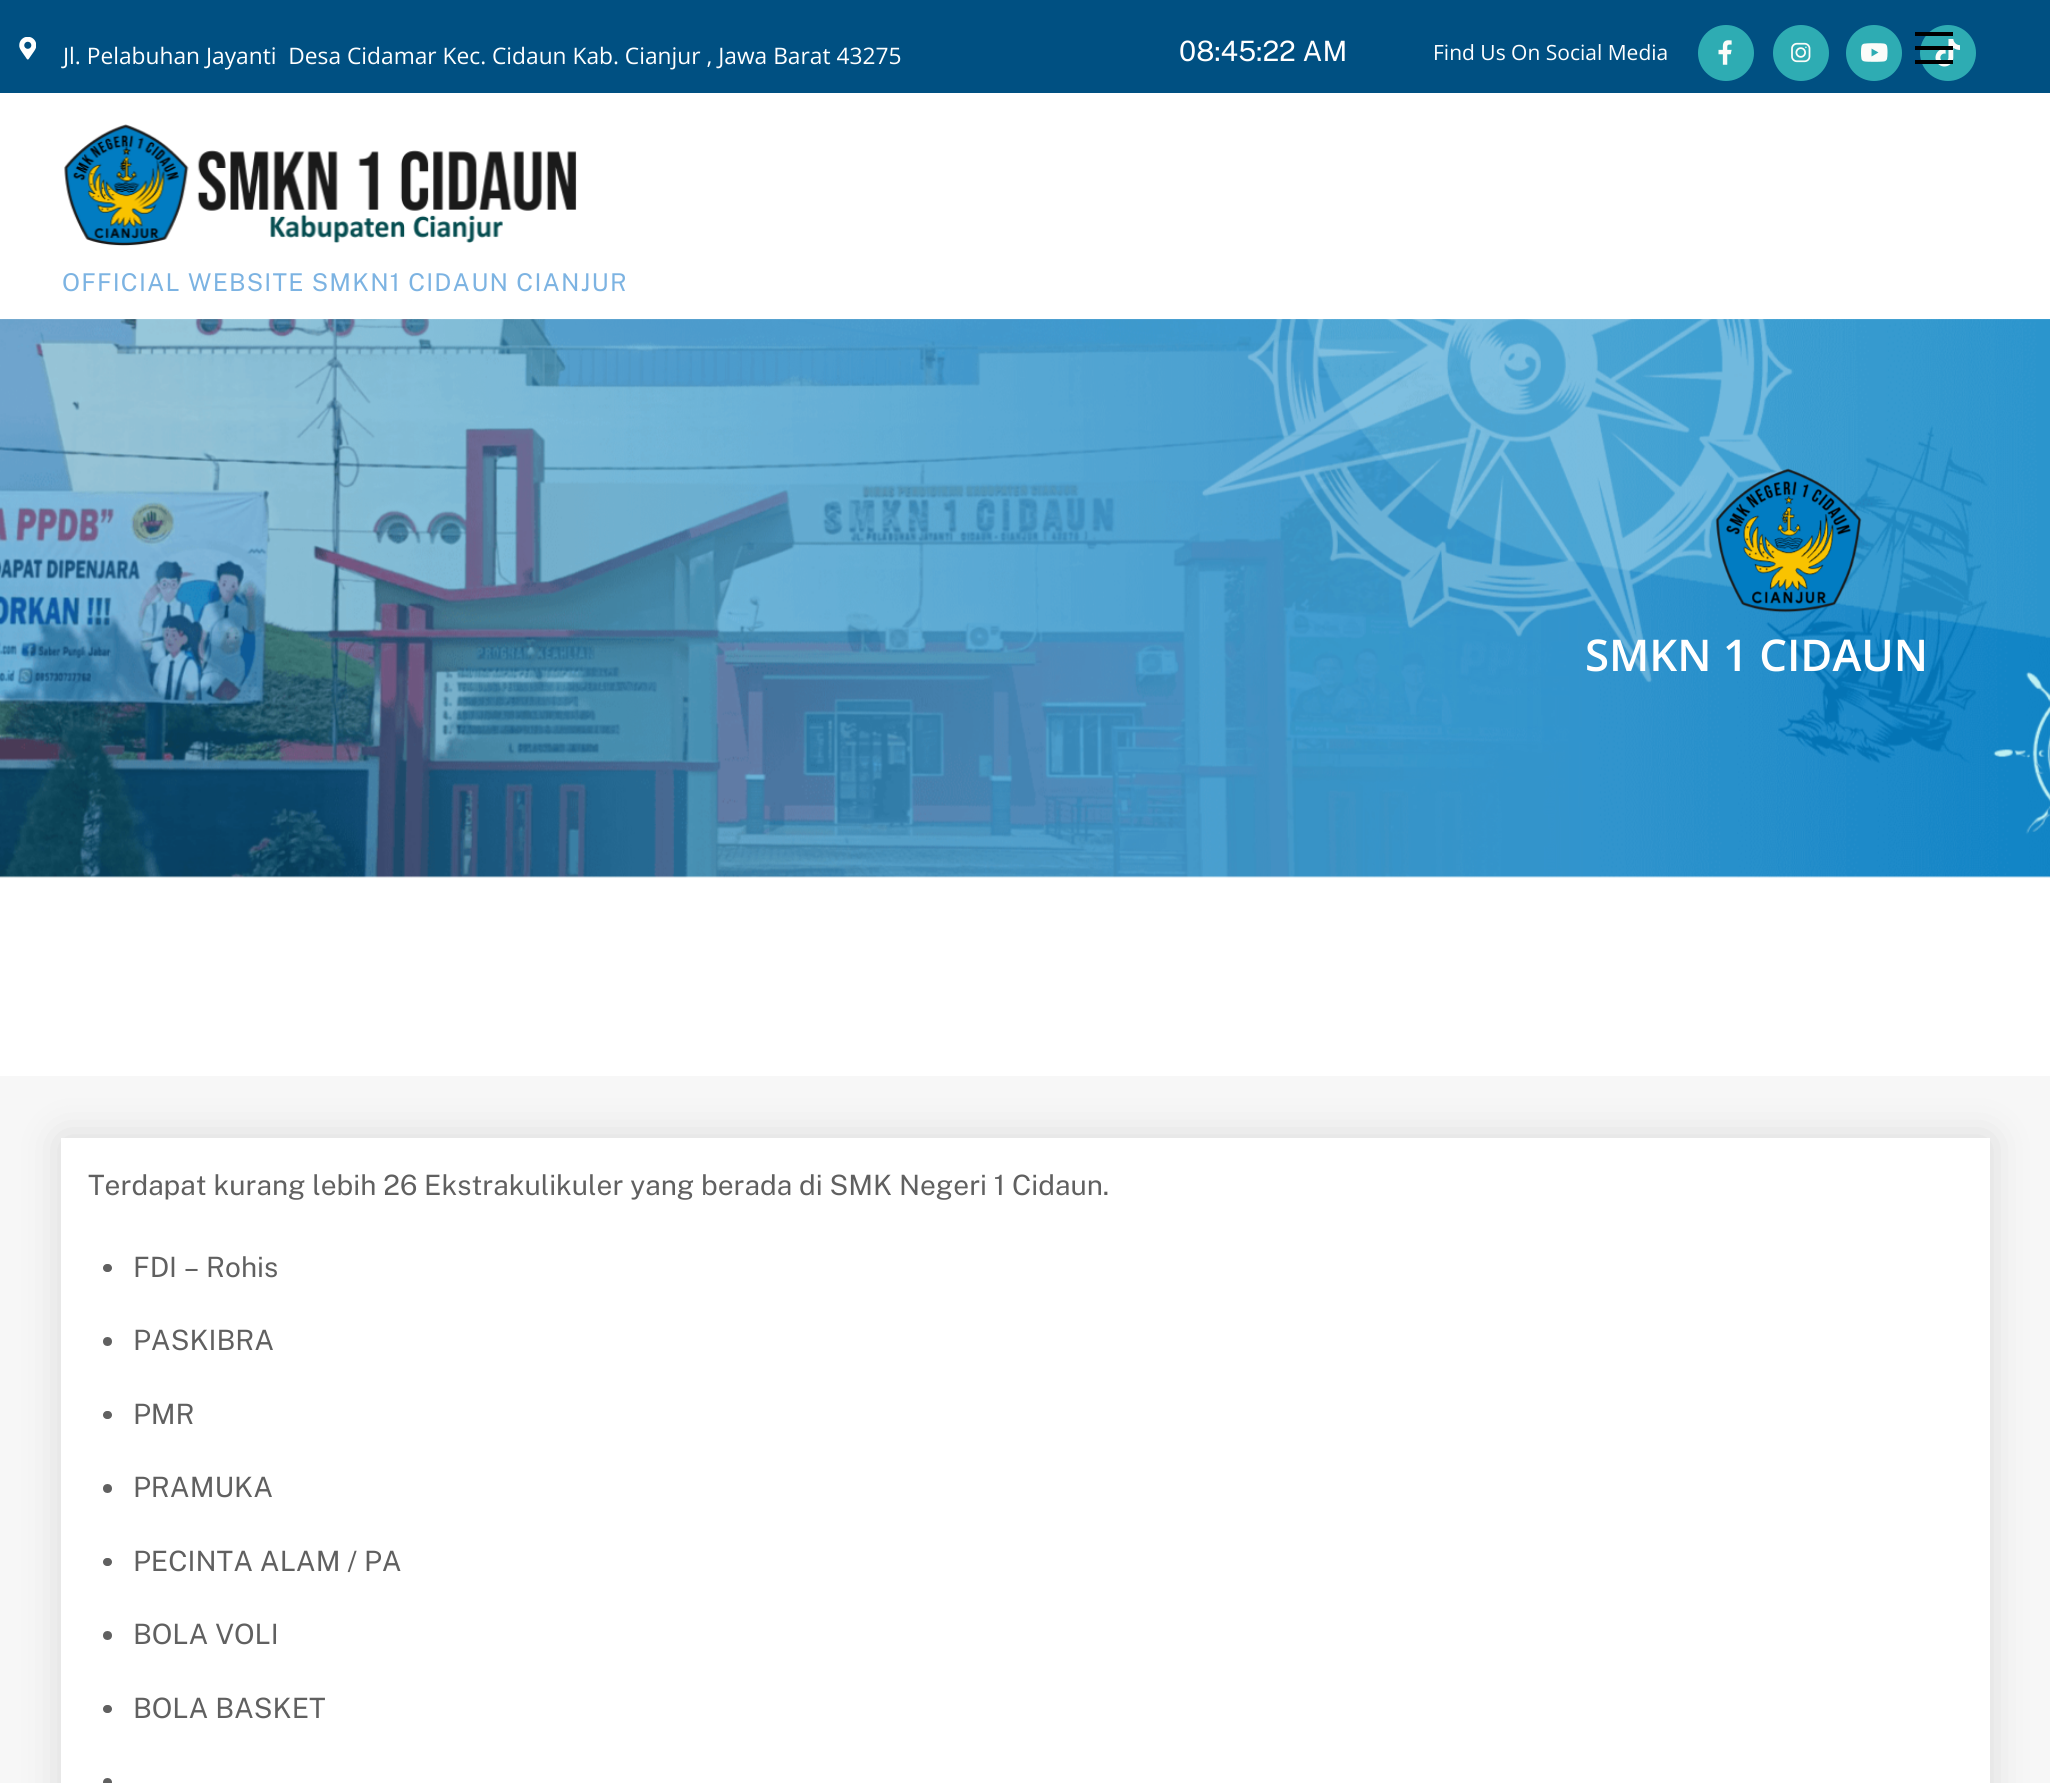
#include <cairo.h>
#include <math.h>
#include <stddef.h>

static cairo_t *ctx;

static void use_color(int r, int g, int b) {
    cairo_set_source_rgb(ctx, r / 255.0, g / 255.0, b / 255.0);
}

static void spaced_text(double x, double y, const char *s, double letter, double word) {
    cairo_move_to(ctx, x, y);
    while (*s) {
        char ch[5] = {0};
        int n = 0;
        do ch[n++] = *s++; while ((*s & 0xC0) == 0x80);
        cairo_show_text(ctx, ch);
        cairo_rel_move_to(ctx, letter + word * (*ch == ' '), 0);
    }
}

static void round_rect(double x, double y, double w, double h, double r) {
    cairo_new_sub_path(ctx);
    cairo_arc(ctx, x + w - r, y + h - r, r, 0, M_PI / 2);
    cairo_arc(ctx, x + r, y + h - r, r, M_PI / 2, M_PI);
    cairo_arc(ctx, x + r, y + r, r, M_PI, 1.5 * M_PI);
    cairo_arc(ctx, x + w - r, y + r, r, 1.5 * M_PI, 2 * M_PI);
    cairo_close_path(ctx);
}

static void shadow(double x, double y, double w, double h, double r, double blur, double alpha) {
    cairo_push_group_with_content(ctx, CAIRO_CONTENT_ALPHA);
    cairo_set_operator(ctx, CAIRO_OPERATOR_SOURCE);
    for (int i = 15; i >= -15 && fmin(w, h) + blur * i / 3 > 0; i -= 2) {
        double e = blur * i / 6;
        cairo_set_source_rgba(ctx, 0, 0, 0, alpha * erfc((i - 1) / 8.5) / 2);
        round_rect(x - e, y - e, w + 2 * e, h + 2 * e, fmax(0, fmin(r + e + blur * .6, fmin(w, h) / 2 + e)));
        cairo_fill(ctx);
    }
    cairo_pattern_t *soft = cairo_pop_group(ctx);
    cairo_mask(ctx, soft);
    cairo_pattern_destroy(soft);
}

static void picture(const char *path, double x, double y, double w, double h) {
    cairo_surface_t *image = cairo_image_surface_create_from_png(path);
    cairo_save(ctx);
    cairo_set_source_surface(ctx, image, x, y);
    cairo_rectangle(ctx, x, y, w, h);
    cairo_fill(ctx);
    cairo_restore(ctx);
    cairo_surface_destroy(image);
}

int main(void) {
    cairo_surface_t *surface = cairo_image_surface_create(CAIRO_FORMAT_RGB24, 2050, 1783);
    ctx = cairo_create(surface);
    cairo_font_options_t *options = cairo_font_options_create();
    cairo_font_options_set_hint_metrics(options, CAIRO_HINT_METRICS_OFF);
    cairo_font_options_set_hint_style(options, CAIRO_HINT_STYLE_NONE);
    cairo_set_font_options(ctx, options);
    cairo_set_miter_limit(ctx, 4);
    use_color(255, 255, 255);
    cairo_paint(ctx);
    use_color(0, 80, 130);
    cairo_rectangle(ctx, 0, 0, 2050, 93);
    cairo_fill(ctx);
    picture("img1.png", 19, 37, 17, 23);
    cairo_select_font_face(ctx, "Open Sans", CAIRO_FONT_SLANT_NORMAL, CAIRO_FONT_WEIGHT_NORMAL);
    cairo_set_font_size(ctx, 22.75);
    use_color(255, 255, 255);
    cairo_move_to(ctx, 63, 64);
    cairo_show_text(ctx, "Jl. Pelabuhan Jayanti  Desa Cidamar Kec. Cidaun Kab. Cianjur , Jawa Barat 43275");
    cairo_select_font_face(ctx, "Public Sans", CAIRO_FONT_SLANT_NORMAL, CAIRO_FONT_WEIGHT_NORMAL);
    cairo_set_font_size(ctx, 28);
    cairo_move_to(ctx, 1179, 61);
    cairo_show_text(ctx, "08:45:22 AM");
    cairo_select_font_face(ctx, "Open Sans", CAIRO_FONT_SLANT_NORMAL, CAIRO_FONT_WEIGHT_NORMAL);
    cairo_set_font_size(ctx, 21);
    cairo_move_to(ctx, 1433, 60);
    cairo_show_text(ctx, "Find Us On Social Media");
    use_color(46, 172, 179);
    cairo_new_path(ctx);
    cairo_arc(ctx, 1726, 53, 28, 0, 2 * M_PI);
    cairo_fill(ctx);
    picture("img2.png", 1718, 40, 14, 25);
    cairo_arc(ctx, 1801, 53, 28, 0, 2 * M_PI);
    cairo_fill(ctx);
    picture("img3.png", 1791, 42, 20, 21);
    cairo_arc(ctx, 1874, 53, 28, 0, 2 * M_PI);
    cairo_fill(ctx);
    picture("img4.png", 1861, 43, 27, 19);
    cairo_arc(ctx, 1948, 53, 28, 0, 2 * M_PI);
    cairo_fill(ctx);
    picture("img5.png", 1935, 39, 25, 28);
    use_color(0, 0, 0);
    cairo_rectangle(ctx, 1915, 60, 38, 4);
    cairo_fill(ctx);
    cairo_rectangle(ctx, 1915, 32, 38, 4);
    cairo_fill(ctx);
    cairo_rectangle(ctx, 1915, 46, 38, 4);
    cairo_fill(ctx);
    picture("img6.png", 64, 124, 513, 122);
    cairo_select_font_face(ctx, "Public Sans", CAIRO_FONT_SLANT_NORMAL, CAIRO_FONT_WEIGHT_NORMAL);
    cairo_set_font_size(ctx, 24.5);
    use_color(124, 179, 226);
    spaced_text(62, 291, "OFFICIAL WEBSITE SMKN1 CIDAUN CIANJUR", 1.2, 0);
    picture("img7.png", 0, 319, 2050, 559);
    picture("img8.png", 1715, 468, 147, 145);
    cairo_select_font_face(ctx, "Open Sans SemiBold", CAIRO_FONT_SLANT_NORMAL, CAIRO_FONT_WEIGHT_NORMAL);
    cairo_set_font_size(ctx, 43.75);
    use_color(255, 255, 255);
    cairo_move_to(ctx, 1585, 671);
    cairo_show_text(ctx, "SMKN 1 CIDAUN");
    use_color(247, 247, 247);
    cairo_rectangle(ctx, 0, 1076, 2050, 707);
    cairo_fill(ctx);
    use_color(0, 0, 0);
    shadow(61, 1138, 1929, 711, 0, 22, 0.12);
    use_color(255, 255, 255);
    cairo_rectangle(ctx, 61, 1138, 1929, 645);
    cairo_fill(ctx);
    cairo_select_font_face(ctx, "Public Sans", CAIRO_FONT_SLANT_NORMAL, CAIRO_FONT_WEIGHT_NORMAL);
    cairo_set_font_size(ctx, 28);
    use_color(96, 96, 96);
    cairo_move_to(ctx, 88, 1195);
    cairo_show_text(ctx, "Terdapat kurang lebih 26 Ekstrakulikuler yang berada di SMK Negeri 1 Cidaun.");
    round_rect(103, 1264, 9, 8, 4);
    cairo_fill(ctx);
    cairo_move_to(ctx, 133, 1277);
    cairo_show_text(ctx, "FDI – Rohis");
    cairo_new_path(ctx);
    cairo_arc(ctx, 107.5, 1341.5, 4.5, 0, 2 * M_PI);
    cairo_fill(ctx);
    cairo_move_to(ctx, 133, 1350);
    cairo_show_text(ctx, "PASKIBRA");
    round_rect(103, 1411, 9, 8, 4);
    cairo_fill(ctx);
    cairo_move_to(ctx, 133, 1424);
    cairo_show_text(ctx, "PMR");
    cairo_new_path(ctx);
    cairo_arc(ctx, 107.5, 1488.5, 4.5, 0, 2 * M_PI);
    cairo_fill(ctx);
    cairo_move_to(ctx, 133, 1497);
    cairo_show_text(ctx, "PRAMUKA");
    round_rect(103, 1558, 9, 8, 4);
    cairo_fill(ctx);
    cairo_move_to(ctx, 133, 1571);
    cairo_show_text(ctx, "PECINTA ALAM / PA");
    cairo_new_path(ctx);
    cairo_arc(ctx, 107.5, 1635.5, 4.5, 0, 2 * M_PI);
    cairo_fill(ctx);
    cairo_move_to(ctx, 133, 1644);
    cairo_show_text(ctx, "BOLA VOLI");
    round_rect(103, 1705, 9, 8, 4);
    cairo_fill(ctx);
    cairo_move_to(ctx, 133, 1718);
    cairo_show_text(ctx, "BOLA BASKET");
    cairo_new_path(ctx);
    cairo_arc(ctx, 107.5, 1782.5, 4.5, 0, 2 * M_PI);
    cairo_fill(ctx);
    cairo_surface_write_to_png(surface, "result.png");
    cairo_font_options_destroy(options);
    cairo_destroy(ctx);
    cairo_surface_destroy(surface);
    return 0;
}
